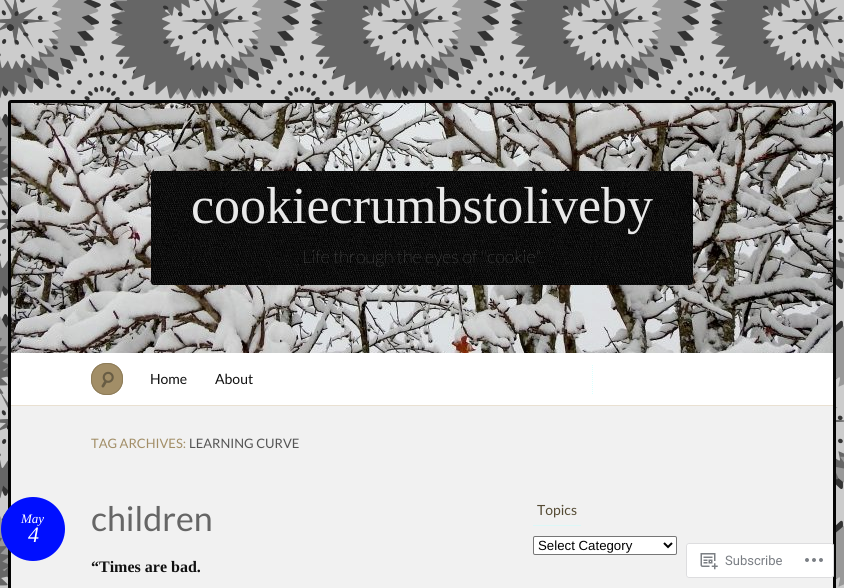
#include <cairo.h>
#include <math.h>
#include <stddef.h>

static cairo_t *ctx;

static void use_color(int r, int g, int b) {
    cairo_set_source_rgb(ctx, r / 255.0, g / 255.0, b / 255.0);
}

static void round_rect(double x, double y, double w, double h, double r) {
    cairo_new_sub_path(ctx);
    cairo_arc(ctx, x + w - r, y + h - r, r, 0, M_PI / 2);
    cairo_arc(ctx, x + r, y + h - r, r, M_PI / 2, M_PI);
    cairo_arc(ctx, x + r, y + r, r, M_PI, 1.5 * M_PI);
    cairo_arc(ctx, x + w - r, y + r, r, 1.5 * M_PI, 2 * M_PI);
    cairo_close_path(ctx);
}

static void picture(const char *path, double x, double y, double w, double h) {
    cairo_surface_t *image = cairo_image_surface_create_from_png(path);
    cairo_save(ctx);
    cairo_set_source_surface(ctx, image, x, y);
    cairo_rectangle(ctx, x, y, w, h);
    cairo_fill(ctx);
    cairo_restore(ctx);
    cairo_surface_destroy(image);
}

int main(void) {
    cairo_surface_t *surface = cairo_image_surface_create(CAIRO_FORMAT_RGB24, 844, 588);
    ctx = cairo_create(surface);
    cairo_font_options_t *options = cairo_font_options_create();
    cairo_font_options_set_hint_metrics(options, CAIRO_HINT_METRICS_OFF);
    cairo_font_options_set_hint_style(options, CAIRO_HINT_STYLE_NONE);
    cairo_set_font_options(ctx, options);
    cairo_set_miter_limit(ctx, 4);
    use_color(255, 255, 255);
    cairo_paint(ctx);
    picture("img1.png", 0, 0, 844, 588);
    use_color(241, 241, 241);
    round_rect(9.5, 101.5, 825, 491, 1.5);
    cairo_fill_preserve(ctx);
    use_color(5, 5, 5);
    cairo_set_line_width(ctx, 3);
    cairo_stroke(ctx);
    picture("img2.png", 11, 103, 822, 250);
    picture("img3.png", 151, 171, 542, 114);
    cairo_select_font_face(ctx, "Liberation Serif", CAIRO_FONT_SLANT_NORMAL, CAIRO_FONT_WEIGHT_NORMAL);
    cairo_set_font_size(ctx, 52);
    use_color(233, 233, 233);
    cairo_move_to(ctx, 191, 223);
    cairo_show_text(ctx, "cookiecrumbstoliveby");
    cairo_select_font_face(ctx, "Lato Thin", CAIRO_FONT_SLANT_NORMAL, CAIRO_FONT_WEIGHT_NORMAL);
    cairo_set_font_size(ctx, 18);
    use_color(143, 143, 143);
    cairo_move_to(ctx, 302, 263);
    cairo_show_text(ctx, "Life through the eyes of \"cookie\"");
    use_color(255, 255, 255);
    cairo_rectangle(ctx, 11, 353, 822, 52);
    cairo_fill(ctx);
    use_color(233, 224, 209);
    cairo_rectangle(ctx, 11, 405, 822, 1);
    cairo_fill(ctx);
    use_color(162, 142, 103);
    round_rect(91, 363, 32, 32, 15);
    cairo_fill(ctx);
    picture("img4.png", 101, 371, 13, 17);
    round_rect(91.5, 363.5, 31, 31, 14.5);
    use_color(141, 124, 89);
    cairo_set_line_width(ctx, 1);
    cairo_stroke(ctx);
    cairo_new_path(ctx);
    cairo_move_to(ctx, 592.5, 365);
    cairo_line_to(ctx, 592.5, 395);
    use_color(221, 255, 255);
    cairo_set_dash(ctx, (double[]){1, 1}, 2, 0);
    cairo_stroke(ctx);
    cairo_select_font_face(ctx, "Lato", CAIRO_FONT_SLANT_NORMAL, CAIRO_FONT_WEIGHT_NORMAL);
    cairo_set_font_size(ctx, 14);
    use_color(17, 17, 17);
    cairo_move_to(ctx, 150, 384);
    cairo_show_text(ctx, "Home");
    cairo_move_to(ctx, 215, 384);
    cairo_show_text(ctx, "About");
    cairo_set_font_size(ctx, 13);
    use_color(162, 142, 103);
    cairo_move_to(ctx, 91, 448);
    cairo_show_text(ctx, "TAG ARCHIVES:");
    use_color(85, 85, 85);
    cairo_move_to(ctx, 189, 448);
    cairo_show_text(ctx, "LEARNING CURVE");
    use_color(0, 15, 255);
    cairo_new_path(ctx);
    cairo_arc(ctx, 33, 529, 32, 0, 2 * M_PI);
    cairo_fill(ctx);
    cairo_select_font_face(ctx, "Liberation Serif", CAIRO_FONT_SLANT_ITALIC, CAIRO_FONT_WEIGHT_NORMAL);
    use_color(255, 255, 255);
    cairo_move_to(ctx, 21, 523);
    cairo_show_text(ctx, "May");
    cairo_set_font_size(ctx, 22);
    cairo_move_to(ctx, 28, 542);
    cairo_show_text(ctx, "4");
    cairo_select_font_face(ctx, "Lato", CAIRO_FONT_SLANT_NORMAL, CAIRO_FONT_WEIGHT_NORMAL);
    cairo_set_font_size(ctx, 34);
    use_color(102, 102, 102);
    cairo_move_to(ctx, 91, 531);
    cairo_show_text(ctx, "children");
    cairo_select_font_face(ctx, "Liberation Serif", CAIRO_FONT_SLANT_NORMAL, CAIRO_FONT_WEIGHT_BOLD);
    cairo_set_font_size(ctx, 16);
    use_color(17, 17, 17);
    cairo_move_to(ctx, 91, 572);
    cairo_show_text(ctx, "“Times are bad.");
    use_color(219, 247, 247);
    cairo_rectangle(ctx, 533, 525, 48, 1);
    cairo_fill(ctx);
    cairo_select_font_face(ctx, "Lato", CAIRO_FONT_SLANT_NORMAL, CAIRO_FONT_WEIGHT_NORMAL);
    cairo_set_font_size(ctx, 14);
    use_color(85, 75, 52);
    cairo_move_to(ctx, 537, 515);
    cairo_show_text(ctx, "Topics");
    use_color(255, 255, 255);
    round_rect(533.5, 536.5, 143, 18, 1.5);
    cairo_fill_preserve(ctx);
    use_color(118, 118, 118);
    cairo_set_dash(ctx, NULL, 0, 0);
    cairo_stroke(ctx);
    cairo_new_path(ctx);
    cairo_move_to(ctx, 664, 543);
    cairo_line_to(ctx, 668, 547);
    cairo_line_to(ctx, 672, 543);
    use_color(0, 0, 0);
    cairo_set_line_width(ctx, 2);
    cairo_stroke(ctx);
    cairo_select_font_face(ctx, "Liberation Sans", CAIRO_FONT_SLANT_NORMAL, CAIRO_FONT_WEIGHT_NORMAL);
    cairo_set_font_size(ctx, 13.25);
    cairo_move_to(ctx, 538, 550);
    cairo_show_text(ctx, "Select Category");
    cairo_set_source_rgba(ctx, 1, 1, 1, 0.98);
    round_rect(686, 543, 148, 35, 3);
    cairo_fill(ctx);
    round_rect(686.5, 543.5, 147, 34, 2.5);
    cairo_set_source_rgba(ctx, 0.863, 0.863, 0.871, 0.98);
    cairo_set_line_width(ctx, 1);
    cairo_stroke(ctx);
    picture("img5.png", 700, 553, 18, 17);
    cairo_select_font_face(ctx, "Roboto", CAIRO_FONT_SLANT_NORMAL, CAIRO_FONT_WEIGHT_NORMAL);
    cairo_set_font_size(ctx, 13);
    use_color(122, 126, 132);
    cairo_move_to(ctx, 725, 565);
    cairo_show_text(ctx, "Subscribe");
    picture("img6.png", 805, 558, 18, 4);
    cairo_surface_write_to_png(surface, "result.png");
    cairo_font_options_destroy(options);
    cairo_destroy(ctx);
    cairo_surface_destroy(surface);
    return 0;
}
